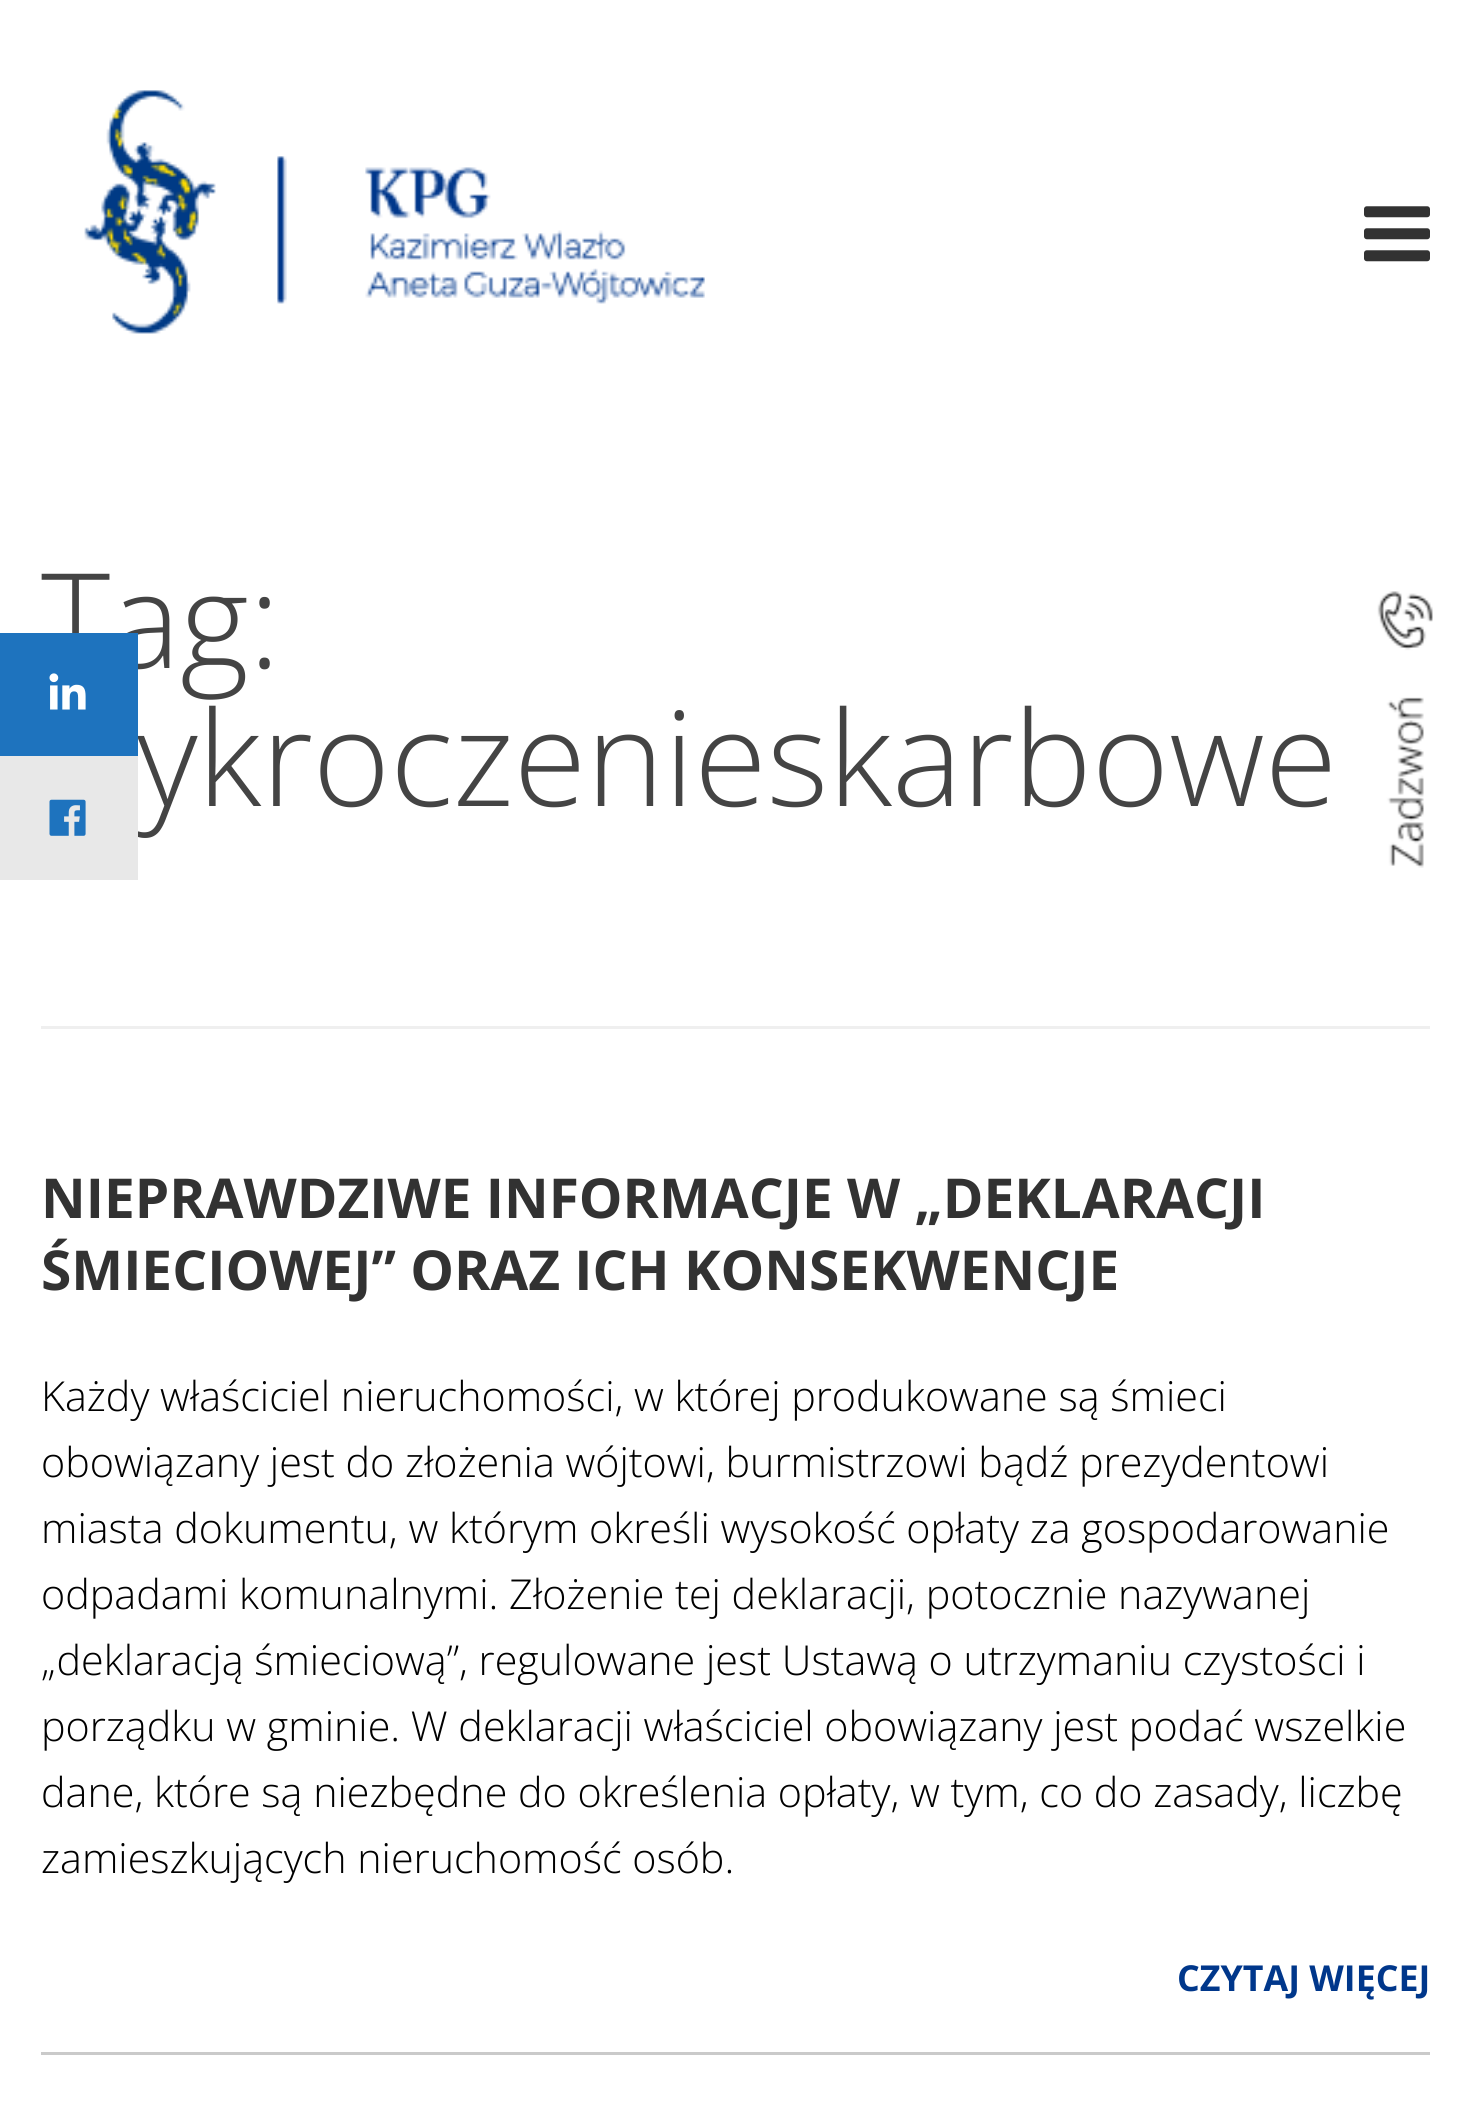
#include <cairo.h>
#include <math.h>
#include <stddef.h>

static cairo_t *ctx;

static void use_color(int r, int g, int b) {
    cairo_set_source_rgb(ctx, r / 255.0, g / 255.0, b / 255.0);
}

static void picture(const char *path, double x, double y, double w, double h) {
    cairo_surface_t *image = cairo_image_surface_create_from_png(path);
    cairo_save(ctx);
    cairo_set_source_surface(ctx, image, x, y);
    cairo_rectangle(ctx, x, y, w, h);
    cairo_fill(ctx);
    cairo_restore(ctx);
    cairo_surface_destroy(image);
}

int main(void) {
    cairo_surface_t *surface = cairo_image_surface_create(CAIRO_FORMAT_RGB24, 1469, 2103);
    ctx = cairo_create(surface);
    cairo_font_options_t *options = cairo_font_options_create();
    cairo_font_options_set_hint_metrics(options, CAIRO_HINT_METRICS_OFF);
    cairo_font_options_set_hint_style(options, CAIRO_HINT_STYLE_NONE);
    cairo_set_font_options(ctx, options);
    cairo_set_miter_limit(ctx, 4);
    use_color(255, 255, 255);
    cairo_paint(ctx);
    picture("img1.png", 84, 90, 621, 244);
    picture("img2.png", 1364, 206, 66, 56);
    use_color(239, 239, 239);
    cairo_rectangle(ctx, 41, 1026, 1389, 3);
    cairo_fill(ctx);
    cairo_select_font_face(ctx, "Open Sans Light", CAIRO_FONT_SLANT_NORMAL, CAIRO_FONT_WEIGHT_NORMAL);
    cairo_set_font_size(ctx, 132);
    use_color(68, 68, 68);
    cairo_move_to(ctx, 41, 668);
    cairo_show_text(ctx, "Tag:");
    cairo_move_to(ctx, 137, 806);
    cairo_show_text(ctx, "ykroczenieskarbowe");
    use_color(202, 202, 202);
    cairo_rectangle(ctx, 41, 2052, 1389, 3);
    cairo_fill(ctx);
    cairo_select_font_face(ctx, "Open Sans", CAIRO_FONT_SLANT_NORMAL, CAIRO_FONT_WEIGHT_BOLD);
    cairo_set_font_size(ctx, 55);
    use_color(50, 50, 50);
    cairo_move_to(ctx, 41, 1218);
    cairo_show_text(ctx, "NIEPRAWDZIWE INFORMACJE W „DEKLARACJI");
    cairo_move_to(ctx, 41, 1290);
    cairo_show_text(ctx, "ŚMIECIOWEJ” ORAZ ICH KONSEKWENCJE");
    cairo_select_font_face(ctx, "Open Sans Light", CAIRO_FONT_SLANT_NORMAL, CAIRO_FONT_WEIGHT_NORMAL);
    cairo_set_font_size(ctx, 41.25);
    use_color(0, 0, 0);
    cairo_move_to(ctx, 41, 1411);
    cairo_show_text(ctx, "Każdy właściciel nieruchomości, w której produkowane są śmieci");
    cairo_move_to(ctx, 41, 1477);
    cairo_show_text(ctx, "obowiązany jest do złożenia wójtowi, burmistrzowi bądź prezydentowi");
    cairo_move_to(ctx, 41, 1543);
    cairo_show_text(ctx, "miasta dokumentu, w którym określi wysokość opłaty za gospodarowanie");
    cairo_move_to(ctx, 41, 1609);
    cairo_show_text(ctx, "odpadami komunalnymi. Złożenie tej deklaracji, potocznie nazywanej");
    cairo_move_to(ctx, 41, 1675);
    cairo_show_text(ctx, "„deklaracją śmieciową”, regulowane jest Ustawą o utrzymaniu czystości i");
    cairo_move_to(ctx, 41, 1741);
    cairo_show_text(ctx, "porządku w gminie. W deklaracji właściciel obowiązany jest podać wszelkie");
    cairo_move_to(ctx, 41, 1807);
    cairo_show_text(ctx, "dane, które są niezbędne do określenia opłaty, w tym, co do zasady, liczbę");
    cairo_move_to(ctx, 41, 1873);
    cairo_show_text(ctx, "zamieszkujących nieruchomość osób.");
    cairo_select_font_face(ctx, "Open Sans", CAIRO_FONT_SLANT_NORMAL, CAIRO_FONT_WEIGHT_BOLD);
    cairo_set_font_size(ctx, 35.75);
    use_color(0, 55, 139);
    cairo_move_to(ctx, 1177, 1991);
    cairo_show_text(ctx, "CZYTAJ WIĘCEJ");
    use_color(30, 115, 190);
    cairo_rectangle(ctx, 0, 633, 138, 123);
    cairo_fill(ctx);
    picture("img3.png", 49, 673, 37, 37);
    use_color(232, 232, 232);
    cairo_rectangle(ctx, 0, 756, 138, 124);
    cairo_fill(ctx);
    picture("img4.png", 49, 799, 37, 37);
    picture("img5.png", 1377, 591, 56, 277);
    cairo_surface_write_to_png(surface, "result.png");
    cairo_font_options_destroy(options);
    cairo_destroy(ctx);
    cairo_surface_destroy(surface);
    return 0;
}
